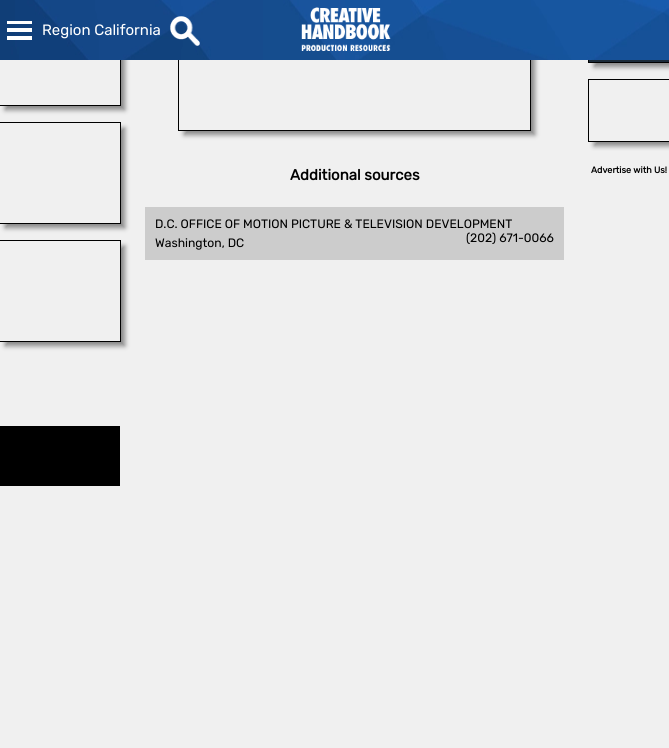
#include <cairo.h>
#include <math.h>
#include <stddef.h>

static cairo_t *ctx;

static void use_color(int r, int g, int b) {
    cairo_set_source_rgb(ctx, r / 255.0, g / 255.0, b / 255.0);
}

static void round_rect(double x, double y, double w, double h, double r) {
    cairo_new_sub_path(ctx);
    cairo_arc(ctx, x + w - r, y + h - r, r, 0, M_PI / 2);
    cairo_arc(ctx, x + r, y + h - r, r, M_PI / 2, M_PI);
    cairo_arc(ctx, x + r, y + r, r, M_PI, 1.5 * M_PI);
    cairo_arc(ctx, x + w - r, y + r, r, 1.5 * M_PI, 2 * M_PI);
    cairo_close_path(ctx);
}

static void shadow(double x, double y, double w, double h, double r, double blur, double alpha) {
    cairo_push_group_with_content(ctx, CAIRO_CONTENT_ALPHA);
    cairo_set_operator(ctx, CAIRO_OPERATOR_SOURCE);
    for (int i = 15; i >= -15 && fmin(w, h) + blur * i / 3 > 0; i -= 2) {
        double e = blur * i / 6;
        cairo_set_source_rgba(ctx, 0, 0, 0, alpha * erfc((i - 1) / 8.5) / 2);
        round_rect(x - e, y - e, w + 2 * e, h + 2 * e, fmax(0, fmin(r + e + blur * .6, fmin(w, h) / 2 + e)));
        cairo_fill(ctx);
    }
    cairo_pattern_t *soft = cairo_pop_group(ctx);
    cairo_mask(ctx, soft);
    cairo_pattern_destroy(soft);
}

static void picture(const char *path, double x, double y, double w, double h) {
    cairo_surface_t *image = cairo_image_surface_create_from_png(path);
    cairo_save(ctx);
    cairo_set_source_surface(ctx, image, x, y);
    cairo_rectangle(ctx, x, y, w, h);
    cairo_fill(ctx);
    cairo_restore(ctx);
    cairo_surface_destroy(image);
}

int main(void) {
    cairo_surface_t *surface = cairo_image_surface_create(CAIRO_FORMAT_RGB24, 669, 748);
    ctx = cairo_create(surface);
    cairo_font_options_t *options = cairo_font_options_create();
    cairo_font_options_set_hint_metrics(options, CAIRO_HINT_METRICS_OFF);
    cairo_font_options_set_hint_style(options, CAIRO_HINT_STYLE_NONE);
    cairo_set_font_options(ctx, options);
    cairo_set_miter_limit(ctx, 4);
    use_color(240, 240, 240);
    cairo_paint(ctx);
    cairo_save(ctx);
    cairo_set_fill_rule(ctx, CAIRO_FILL_RULE_EVEN_ODD);
    cairo_new_path(ctx);
    cairo_move_to(ctx, 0, 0);
    cairo_line_to(ctx, 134, 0);
    cairo_line_to(ctx, 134, 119);
    cairo_line_to(ctx, 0, 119);
    cairo_close_path(ctx);
    cairo_move_to(ctx, 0, 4);
    cairo_line_to(ctx, 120, 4);
    cairo_line_to(ctx, 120, 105);
    cairo_line_to(ctx, 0, 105);
    cairo_close_path(ctx);
    cairo_clip(ctx);
    use_color(136, 136, 136);
    shadow(5, 9, 120, 101, 0, 2.5, 1);
    cairo_restore(ctx);
    cairo_rectangle(ctx, -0.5, 3.5, 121, 102);
    use_color(0, 0, 0);
    cairo_set_line_width(ctx, 1);
    cairo_stroke(ctx);
    cairo_save(ctx);
    cairo_set_fill_rule(ctx, CAIRO_FILL_RULE_EVEN_ODD);
    cairo_new_path(ctx);
    cairo_move_to(ctx, 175, 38);
    cairo_line_to(ctx, 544, 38);
    cairo_line_to(ctx, 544, 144);
    cairo_line_to(ctx, 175, 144);
    cairo_close_path(ctx);
    cairo_move_to(ctx, 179, 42);
    cairo_line_to(ctx, 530, 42);
    cairo_line_to(ctx, 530, 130);
    cairo_line_to(ctx, 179, 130);
    cairo_close_path(ctx);
    cairo_clip(ctx);
    use_color(136, 136, 136);
    shadow(184, 47, 351, 88, 0, 2.5, 1);
    cairo_restore(ctx);
    cairo_rectangle(ctx, 178.5, 41.5, 352, 89);
    cairo_stroke(ctx);
    use_color(136, 136, 136);
    shadow(594, 7, 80, 60, 0, 2.5, 1);
    picture("img4.png", 589, 60, 80, 2);
    cairo_rectangle(ctx, 588.5, 1.5, 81, 61);
    use_color(0, 0, 0);
    cairo_stroke(ctx);
    picture("img1.png", 0, 0, 669, 60);
    use_color(255, 255, 255);
    cairo_rectangle(ctx, 7, 21, 25, 3);
    cairo_fill(ctx);
    cairo_rectangle(ctx, 7, 28, 25, 4);
    cairo_fill(ctx);
    cairo_rectangle(ctx, 7, 36, 25, 4);
    cairo_fill(ctx);
    cairo_select_font_face(ctx, "Rubik Light", CAIRO_FONT_SLANT_NORMAL, CAIRO_FONT_WEIGHT_NORMAL);
    cairo_set_font_size(ctx, 15);
    cairo_move_to(ctx, 42, 35);
    cairo_show_text(ctx, "Region California");
    picture("img2.png", 170, 16, 30, 30);
    picture("img3.png", 301, 7, 90, 44);
    cairo_save(ctx);
    cairo_set_fill_rule(ctx, CAIRO_FILL_RULE_EVEN_ODD);
    cairo_new_path(ctx);
    cairo_move_to(ctx, 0, 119);
    cairo_line_to(ctx, 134, 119);
    cairo_line_to(ctx, 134, 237);
    cairo_line_to(ctx, 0, 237);
    cairo_close_path(ctx);
    cairo_move_to(ctx, 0, 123);
    cairo_line_to(ctx, 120, 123);
    cairo_line_to(ctx, 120, 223);
    cairo_line_to(ctx, 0, 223);
    cairo_close_path(ctx);
    cairo_clip(ctx);
    use_color(136, 136, 136);
    shadow(5, 128, 120, 100, 0, 2.5, 1);
    cairo_restore(ctx);
    cairo_rectangle(ctx, -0.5, 122.5, 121, 101);
    use_color(0, 0, 0);
    cairo_stroke(ctx);
    cairo_save(ctx);
    cairo_set_fill_rule(ctx, CAIRO_FILL_RULE_EVEN_ODD);
    cairo_new_path(ctx);
    cairo_move_to(ctx, 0, 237);
    cairo_line_to(ctx, 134, 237);
    cairo_line_to(ctx, 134, 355);
    cairo_line_to(ctx, 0, 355);
    cairo_close_path(ctx);
    cairo_move_to(ctx, 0, 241);
    cairo_line_to(ctx, 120, 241);
    cairo_line_to(ctx, 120, 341);
    cairo_line_to(ctx, 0, 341);
    cairo_close_path(ctx);
    cairo_clip(ctx);
    use_color(136, 136, 136);
    shadow(5, 246, 120, 100, 0, 2.5, 1);
    cairo_restore(ctx);
    cairo_rectangle(ctx, -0.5, 240.5, 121, 101);
    cairo_stroke(ctx);
    cairo_rectangle(ctx, 0, 426, 120, 60);
    cairo_fill(ctx);
    cairo_select_font_face(ctx, "Rubik", CAIRO_FONT_SLANT_NORMAL, CAIRO_FONT_WEIGHT_BOLD);
    cairo_move_to(ctx, 290, 180);
    cairo_show_text(ctx, "Additional sources");
    use_color(204, 204, 204);
    cairo_rectangle(ctx, 145, 207, 419, 53);
    cairo_fill(ctx);
    cairo_select_font_face(ctx, "Rubik Light", CAIRO_FONT_SLANT_NORMAL, CAIRO_FONT_WEIGHT_NORMAL);
    cairo_set_font_size(ctx, 12.15);
    use_color(0, 0, 0);
    cairo_move_to(ctx, 155, 228);
    cairo_show_text(ctx, "D.C. OFFICE OF MOTION PICTURE & TELEVISION DEVELOPMENT");
    cairo_move_to(ctx, 155, 247);
    cairo_show_text(ctx, "Washington, DC");
    cairo_move_to(ctx, 466, 242);
    cairo_show_text(ctx, "(202) 671-0066");
    cairo_save(ctx);
    cairo_rectangle(ctx, 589, 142, 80, 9);
    cairo_clip(ctx);
    use_color(136, 136, 136);
    shadow(594, 85, 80, 61, 0, 2.5, 1);
    cairo_restore(ctx);
    cairo_rectangle(ctx, 588.5, 79.5, 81, 62);
    cairo_stroke(ctx);
    cairo_select_font_face(ctx, "Rubik", CAIRO_FONT_SLANT_NORMAL, CAIRO_FONT_WEIGHT_BOLD);
    cairo_set_font_size(ctx, 9);
    cairo_move_to(ctx, 591, 173);
    cairo_show_text(ctx, "Advertise with Us!");
    cairo_surface_write_to_png(surface, "result.png");
    cairo_font_options_destroy(options);
    cairo_destroy(ctx);
    cairo_surface_destroy(surface);
    return 0;
}
